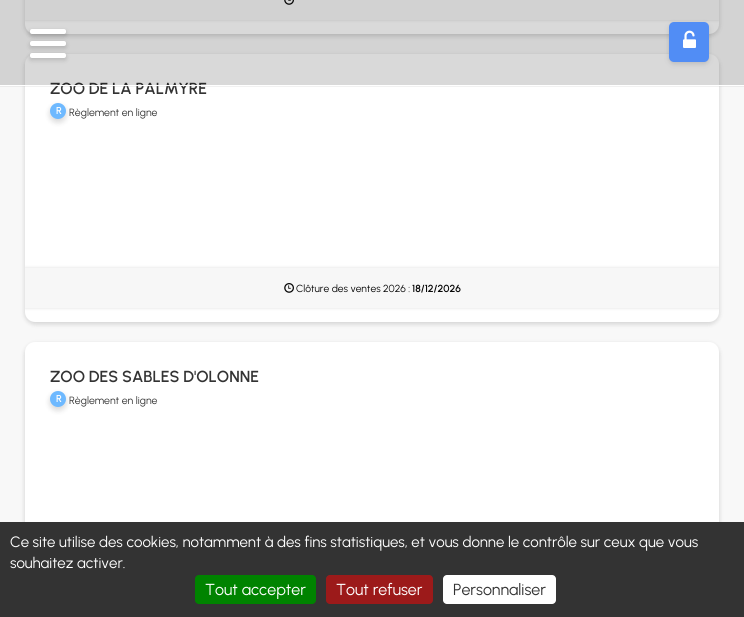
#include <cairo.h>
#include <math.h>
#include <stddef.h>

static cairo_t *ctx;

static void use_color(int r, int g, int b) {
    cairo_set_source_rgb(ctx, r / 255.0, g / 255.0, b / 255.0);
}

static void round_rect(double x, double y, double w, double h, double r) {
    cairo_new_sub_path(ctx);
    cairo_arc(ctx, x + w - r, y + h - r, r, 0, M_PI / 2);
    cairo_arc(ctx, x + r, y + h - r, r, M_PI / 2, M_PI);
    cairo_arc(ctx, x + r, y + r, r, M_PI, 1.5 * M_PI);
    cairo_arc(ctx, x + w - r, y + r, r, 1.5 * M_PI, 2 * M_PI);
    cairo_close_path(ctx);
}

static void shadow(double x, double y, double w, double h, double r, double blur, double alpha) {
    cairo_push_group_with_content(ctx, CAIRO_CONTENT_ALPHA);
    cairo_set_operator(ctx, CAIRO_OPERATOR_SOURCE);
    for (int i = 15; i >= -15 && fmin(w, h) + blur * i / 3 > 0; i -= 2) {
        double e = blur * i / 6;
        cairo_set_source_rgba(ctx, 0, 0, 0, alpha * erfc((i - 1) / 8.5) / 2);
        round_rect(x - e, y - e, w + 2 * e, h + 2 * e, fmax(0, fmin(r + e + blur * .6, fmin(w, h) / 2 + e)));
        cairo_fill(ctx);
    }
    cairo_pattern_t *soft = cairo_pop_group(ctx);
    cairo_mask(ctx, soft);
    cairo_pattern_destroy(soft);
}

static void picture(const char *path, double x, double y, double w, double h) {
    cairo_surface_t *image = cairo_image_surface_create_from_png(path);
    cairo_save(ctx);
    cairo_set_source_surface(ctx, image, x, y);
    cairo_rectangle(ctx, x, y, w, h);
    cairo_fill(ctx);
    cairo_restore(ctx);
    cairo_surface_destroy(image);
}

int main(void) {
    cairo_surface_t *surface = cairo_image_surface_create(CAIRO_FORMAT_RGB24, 744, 617);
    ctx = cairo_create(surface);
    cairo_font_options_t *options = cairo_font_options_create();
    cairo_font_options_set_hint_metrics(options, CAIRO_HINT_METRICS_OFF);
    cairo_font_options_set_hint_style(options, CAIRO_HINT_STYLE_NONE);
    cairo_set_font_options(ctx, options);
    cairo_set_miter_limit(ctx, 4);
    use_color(248, 248, 248);
    cairo_paint(ctx);
    use_color(0, 0, 0);
    shadow(25, 56, 694, 268, 10, 2.5, 0.16);
    use_color(255, 255, 255);
    round_rect(25, 54, 694, 268, 10);
    cairo_fill(ctx);
    cairo_select_font_face(ctx, "Urbanist SemiBold", CAIRO_FONT_SLANT_NORMAL, CAIRO_FONT_WEIGHT_NORMAL);
    cairo_set_font_size(ctx, 16);
    use_color(51, 51, 51);
    cairo_move_to(ctx, 50, 94);
    cairo_show_text(ctx, "ZOO DE LA PALMYRE");
    cairo_set_source_rgba(ctx, 0.643, 0.643, 0.643, 0.16);
    cairo_rectangle(ctx, 0, 86, 744, 1);
    cairo_fill(ctx);
    use_color(0, 0, 0);
    shadow(25, -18, 694, 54, 10, 2.5, 0.16);
    use_color(255, 255, 255);
    round_rect(25, -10, 694, 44, 10);
    cairo_fill(ctx);
    cairo_save(ctx);
    round_rect(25, -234, 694, 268, 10);
    cairo_clip(ctx);
    use_color(221, 221, 221);
    shadow(25, -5, 694, 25, 0, 1.5, 1);
    cairo_restore(ctx);
    use_color(247, 247, 247);
    cairo_rectangle(ctx, 25, 0, 694, 20);
    cairo_fill(ctx);
    picture("img2.png", 284, 0, 10, 5);
    cairo_set_source_rgba(ctx, 0, 0, 0, 0.15);
    cairo_rectangle(ctx, 0, 0, 744, 85);
    cairo_fill(ctx);
    use_color(255, 255, 255);
    cairo_rectangle(ctx, 0, 85, 744, 1);
    cairo_fill(ctx);
    use_color(0, 0, 0);
    shadow(30, 31, 36, 5, 2, 2.5, 0.16);
    use_color(255, 255, 255);
    round_rect(30, 29, 36, 5, 2);
    cairo_fill(ctx);
    use_color(0, 0, 0);
    shadow(30, 43, 36, 5, 2, 2.5, 0.16);
    use_color(255, 255, 255);
    round_rect(30, 41, 36, 5, 2);
    cairo_fill(ctx);
    use_color(0, 0, 0);
    shadow(30, 55, 36, 5, 2, 2.5, 0.16);
    use_color(255, 255, 255);
    round_rect(30, 53, 36, 5, 2);
    cairo_fill(ctx);
    use_color(52, 57, 65);
    shadow(669, 24, 40, 40, 5, 2.5, 0.18);
    use_color(81, 141, 245);
    round_rect(669, 22, 40, 40, 5);
    cairo_fill(ctx);
    picture("img1.png", 683, 30, 13, 18);
    use_color(0, 0, 0);
    shadow(50, 106, 16, 16, 8, 3, 0.16);
    use_color(110, 185, 255);
    cairo_arc(ctx, 58, 111, 8, 0, 2 * M_PI);
    cairo_fill(ctx);
    cairo_set_font_size(ctx, 10);
    use_color(255, 255, 255);
    cairo_move_to(ctx, 56, 114);
    cairo_show_text(ctx, "R");
    cairo_select_font_face(ctx, "Urbanist", CAIRO_FONT_SLANT_NORMAL, CAIRO_FONT_WEIGHT_NORMAL);
    cairo_set_font_size(ctx, 10.5);
    use_color(51, 51, 51);
    cairo_move_to(ctx, 69, 116);
    cairo_show_text(ctx, "Règlement en ligne");
    cairo_save(ctx);
    round_rect(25, 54, 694, 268, 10);
    cairo_clip(ctx);
    use_color(221, 221, 221);
    shadow(25, 268, 694, 40, 0, 1.5, 1);
    cairo_restore(ctx);
    use_color(247, 247, 247);
    cairo_rectangle(ctx, 25, 268, 694, 40);
    cairo_fill(ctx);
    picture("img3.png", 284, 283, 10, 10);
    cairo_set_font_size(ctx, 10.25);
    use_color(8, 8, 8);
    cairo_move_to(ctx, 296, 292);
    cairo_show_text(ctx, "Clôture des ventes 2026 :");
    cairo_select_font_face(ctx, "Urbanist SemiBold", CAIRO_FONT_SLANT_NORMAL, CAIRO_FONT_WEIGHT_NORMAL);
    cairo_move_to(ctx, 412, 292);
    cairo_show_text(ctx, "18/12/2026");
    use_color(0, 0, 0);
    shadow(25, 344, 694, 268, 10, 2.5, 0.16);
    use_color(255, 255, 255);
    round_rect(25, 342, 694, 268, 10);
    cairo_fill(ctx);
    cairo_set_font_size(ctx, 16);
    use_color(51, 51, 51);
    cairo_move_to(ctx, 50, 382);
    cairo_show_text(ctx, "ZOO DES SABLES D'OLONNE");
    use_color(0, 0, 0);
    shadow(50, 394, 16, 16, 8, 3, 0.16);
    use_color(110, 185, 255);
    cairo_arc(ctx, 58, 399, 8, 0, 2 * M_PI);
    cairo_fill(ctx);
    cairo_set_font_size(ctx, 10);
    use_color(255, 255, 255);
    cairo_move_to(ctx, 56, 402);
    cairo_show_text(ctx, "R");
    cairo_select_font_face(ctx, "Urbanist", CAIRO_FONT_SLANT_NORMAL, CAIRO_FONT_WEIGHT_NORMAL);
    cairo_set_font_size(ctx, 10.5);
    use_color(51, 51, 51);
    cairo_move_to(ctx, 69, 404);
    cairo_show_text(ctx, "Règlement en ligne");
    cairo_rectangle(ctx, 0, 522, 744, 95);
    cairo_fill(ctx);
    cairo_set_font_size(ctx, 15);
    use_color(255, 255, 255);
    cairo_move_to(ctx, 10, 547);
    cairo_show_text(ctx, "Ce site utilise des cookies, notamment à des fins statistiques, et vous donne le contrôle sur ceux que vous");
    cairo_move_to(ctx, 10, 568);
    cairo_show_text(ctx, "souhaitez activer.");
    use_color(0, 131, 0);
    round_rect(195, 575, 121, 29, 4);
    cairo_fill(ctx);
    cairo_set_font_size(ctx, 16);
    use_color(255, 255, 255);
    cairo_move_to(ctx, 205, 595);
    cairo_show_text(ctx, "Tout accepter");
    use_color(156, 26, 26);
    round_rect(326, 575, 107, 29, 4);
    cairo_fill(ctx);
    use_color(255, 255, 255);
    cairo_move_to(ctx, 336, 595);
    cairo_show_text(ctx, "Tout refuser");
    round_rect(443, 575, 113, 29, 4);
    cairo_fill(ctx);
    use_color(51, 51, 51);
    cairo_move_to(ctx, 453, 595);
    cairo_show_text(ctx, "Personnaliser");
    cairo_surface_write_to_png(surface, "result.png");
    cairo_font_options_destroy(options);
    cairo_destroy(ctx);
    cairo_surface_destroy(surface);
    return 0;
}
